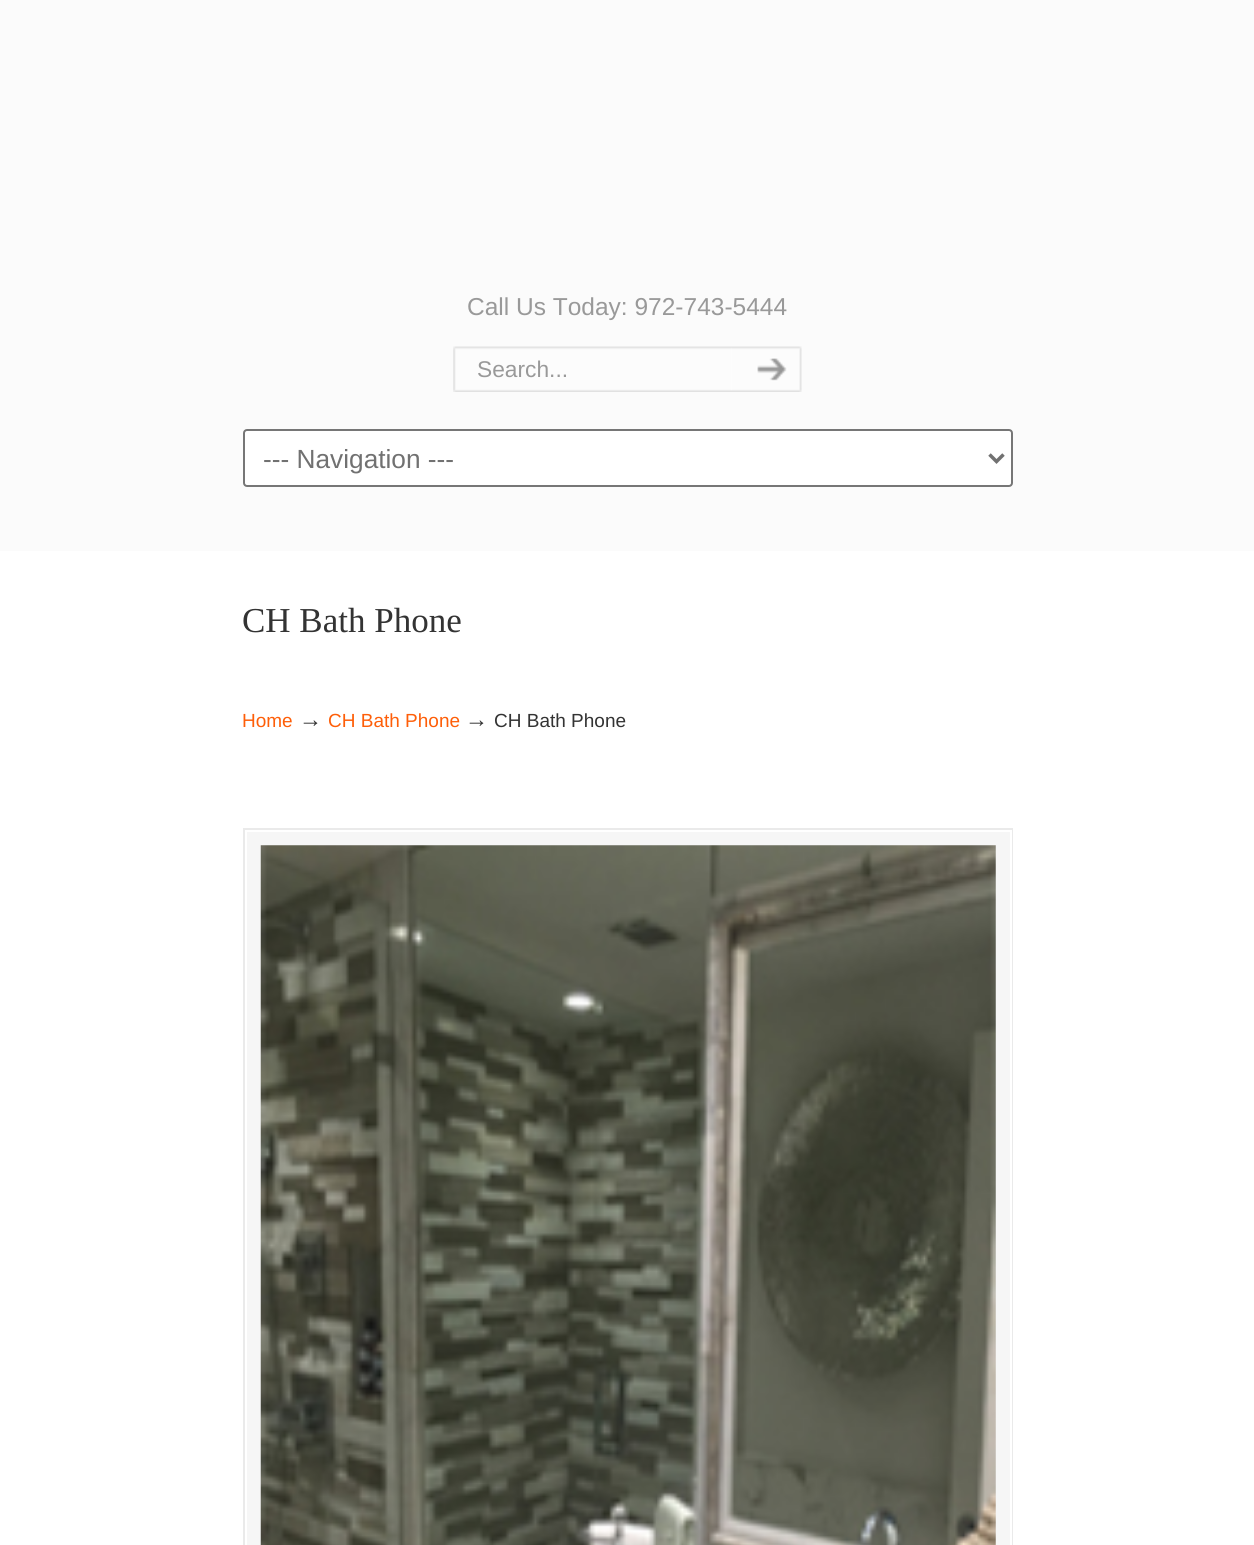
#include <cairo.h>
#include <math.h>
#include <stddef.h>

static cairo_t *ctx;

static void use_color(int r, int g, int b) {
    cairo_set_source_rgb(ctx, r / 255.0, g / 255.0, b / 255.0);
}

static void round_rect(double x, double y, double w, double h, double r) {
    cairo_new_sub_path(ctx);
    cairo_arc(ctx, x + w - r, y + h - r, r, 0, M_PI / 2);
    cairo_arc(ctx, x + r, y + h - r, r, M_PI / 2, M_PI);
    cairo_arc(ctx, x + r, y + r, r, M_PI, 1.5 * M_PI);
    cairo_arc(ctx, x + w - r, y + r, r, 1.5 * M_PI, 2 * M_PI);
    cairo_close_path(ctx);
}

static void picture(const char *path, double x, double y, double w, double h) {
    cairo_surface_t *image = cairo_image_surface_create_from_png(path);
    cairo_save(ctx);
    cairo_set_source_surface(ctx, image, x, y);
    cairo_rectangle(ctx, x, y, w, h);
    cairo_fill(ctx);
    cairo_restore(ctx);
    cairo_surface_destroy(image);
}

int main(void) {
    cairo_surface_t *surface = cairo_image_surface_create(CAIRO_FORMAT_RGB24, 1254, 1545);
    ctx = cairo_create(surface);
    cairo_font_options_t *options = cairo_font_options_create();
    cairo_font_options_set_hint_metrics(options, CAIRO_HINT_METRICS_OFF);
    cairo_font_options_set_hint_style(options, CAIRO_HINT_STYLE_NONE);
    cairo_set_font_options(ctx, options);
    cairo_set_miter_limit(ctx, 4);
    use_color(251, 251, 251);
    cairo_paint(ctx);
    cairo_select_font_face(ctx, "Liberation Sans", CAIRO_FONT_SLANT_NORMAL, CAIRO_FONT_WEIGHT_NORMAL);
    cairo_set_font_size(ctx, 24.5);
    use_color(153, 153, 153);
    cairo_move_to(ctx, 467, 315);
    cairo_show_text(ctx, "Call Us Today: 972-743-5444");
    picture("img1.png", 453, 346, 279, 46);
    cairo_set_font_size(ctx, 22.75);
    cairo_move_to(ctx, 477, 377);
    cairo_show_text(ctx, "Search...");
    picture("img2.png", 731, 346, 71, 46);
    use_color(255, 255, 255);
    round_rect(244, 430, 768, 56, 3);
    cairo_fill_preserve(ctx);
    use_color(118, 118, 118);
    cairo_stroke(ctx);
    cairo_new_path(ctx);
    cairo_move_to(ctx, 989.5, 454.5);
    cairo_line_to(ctx, 996.5, 461.5);
    cairo_line_to(ctx, 1003.5, 454.5);
    use_color(113, 113, 113);
    cairo_set_line_width(ctx, 3.5);
    cairo_stroke(ctx);
    cairo_set_font_size(ctx, 26.25);
    cairo_move_to(ctx, 263, 468);
    cairo_show_text(ctx, "--- Navigation ---");
    use_color(255, 255, 255);
    cairo_rectangle(ctx, 0, 551, 1254, 994);
    cairo_fill(ctx);
    cairo_select_font_face(ctx, "Liberation Serif", CAIRO_FONT_SLANT_NORMAL, CAIRO_FONT_WEIGHT_NORMAL);
    cairo_set_font_size(ctx, 35);
    use_color(51, 51, 51);
    cairo_move_to(ctx, 242, 632);
    cairo_show_text(ctx, "CH Bath Phone");
    cairo_select_font_face(ctx, "Liberation Sans", CAIRO_FONT_SLANT_NORMAL, CAIRO_FONT_WEIGHT_NORMAL);
    cairo_set_font_size(ctx, 19);
    use_color(254, 94, 8);
    cairo_move_to(ctx, 242, 727);
    cairo_show_text(ctx, "Home");
    cairo_set_font_size(ctx, 23);
    use_color(51, 51, 51);
    cairo_move_to(ctx, 299, 727);
    cairo_show_text(ctx, "→");
    cairo_set_font_size(ctx, 19);
    use_color(254, 94, 8);
    cairo_move_to(ctx, 328, 727);
    cairo_show_text(ctx, "CH Bath Phone");
    cairo_set_font_size(ctx, 23);
    use_color(51, 51, 51);
    cairo_move_to(ctx, 465, 727);
    cairo_show_text(ctx, "→");
    cairo_set_font_size(ctx, 19);
    cairo_move_to(ctx, 494, 727);
    cairo_show_text(ctx, "CH Bath Phone");
    use_color(246, 246, 246);
    cairo_rectangle(ctx, 247, 832, 763, 713);
    cairo_fill(ctx);
    cairo_rectangle(ctx, 244, 829, 768, 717);
    use_color(234, 234, 234);
    cairo_set_line_width(ctx, 2);
    cairo_stroke(ctx);
    cairo_rectangle(ctx, 246, 831, 765, 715);
    use_color(255, 255, 255);
    cairo_stroke(ctx);
    picture("img3.png", 260, 845, 736, 700);
    cairo_surface_write_to_png(surface, "result.png");
    cairo_font_options_destroy(options);
    cairo_destroy(ctx);
    cairo_surface_destroy(surface);
    return 0;
}
